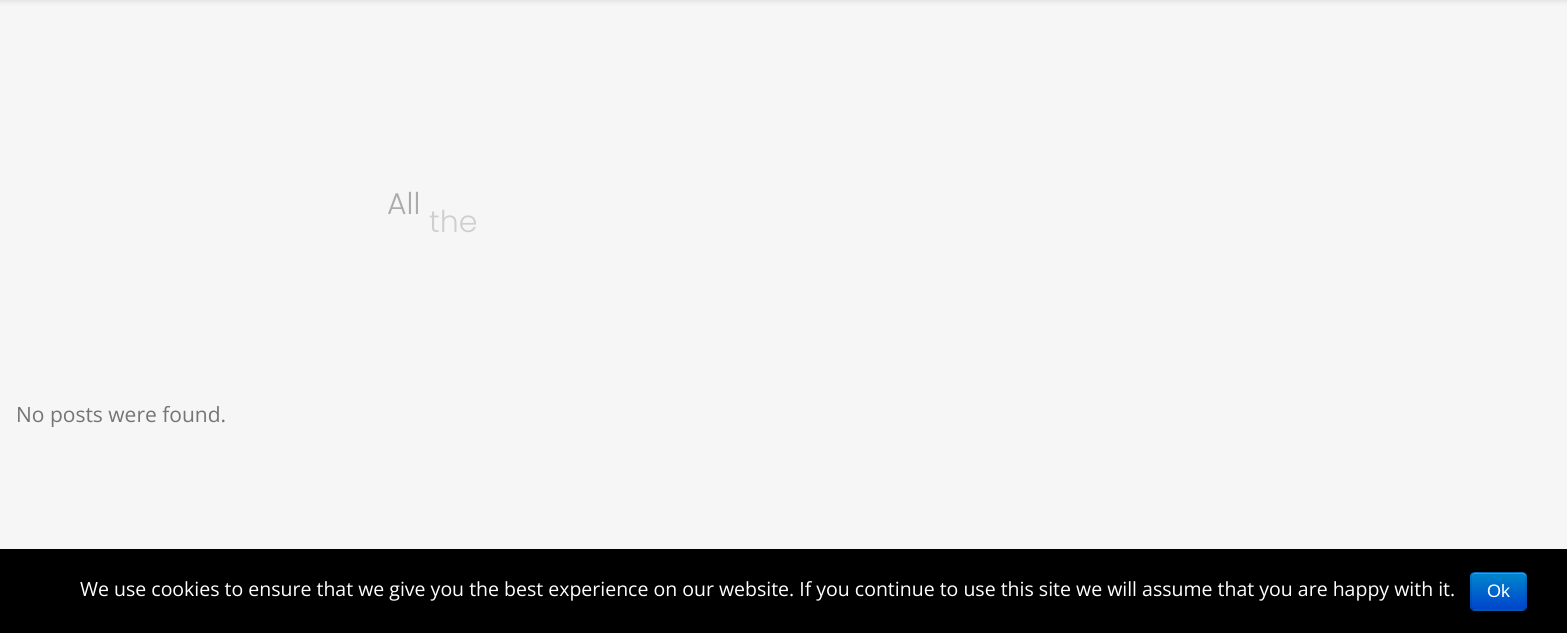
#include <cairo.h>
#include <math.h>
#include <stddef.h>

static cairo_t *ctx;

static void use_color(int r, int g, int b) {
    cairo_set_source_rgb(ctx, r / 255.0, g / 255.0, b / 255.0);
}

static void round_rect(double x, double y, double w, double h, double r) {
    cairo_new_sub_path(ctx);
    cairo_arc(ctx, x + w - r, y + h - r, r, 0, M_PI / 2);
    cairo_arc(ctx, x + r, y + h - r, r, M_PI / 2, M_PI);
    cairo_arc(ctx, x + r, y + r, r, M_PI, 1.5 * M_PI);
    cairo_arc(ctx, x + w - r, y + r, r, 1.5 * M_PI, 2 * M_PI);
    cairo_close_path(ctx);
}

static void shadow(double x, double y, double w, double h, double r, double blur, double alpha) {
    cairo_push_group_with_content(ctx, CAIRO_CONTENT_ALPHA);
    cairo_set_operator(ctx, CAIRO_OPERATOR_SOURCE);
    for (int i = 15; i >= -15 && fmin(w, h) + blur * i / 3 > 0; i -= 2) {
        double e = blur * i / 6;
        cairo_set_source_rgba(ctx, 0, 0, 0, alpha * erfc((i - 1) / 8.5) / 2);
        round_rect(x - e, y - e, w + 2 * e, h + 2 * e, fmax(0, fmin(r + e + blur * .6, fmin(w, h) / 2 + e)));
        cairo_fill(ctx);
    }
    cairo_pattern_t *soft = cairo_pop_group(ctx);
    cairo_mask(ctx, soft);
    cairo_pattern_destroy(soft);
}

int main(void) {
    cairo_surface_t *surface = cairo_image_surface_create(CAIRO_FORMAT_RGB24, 1567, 633);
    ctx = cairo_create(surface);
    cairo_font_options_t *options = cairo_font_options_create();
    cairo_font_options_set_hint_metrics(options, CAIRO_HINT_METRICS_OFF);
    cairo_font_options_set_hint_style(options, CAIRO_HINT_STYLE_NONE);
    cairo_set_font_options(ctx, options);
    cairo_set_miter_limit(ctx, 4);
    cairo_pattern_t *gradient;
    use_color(246, 246, 246);
    cairo_paint(ctx);
    use_color(57, 57, 57);
    shadow(0, -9, 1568, 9, 0, 3, 0.2);
    cairo_select_font_face(ctx, "Poppins Light", CAIRO_FONT_SLANT_NORMAL, CAIRO_FONT_WEIGHT_NORMAL);
    cairo_set_font_size(ctx, 30);
    use_color(171, 171, 171);
    cairo_move_to(ctx, 387, 214);
    cairo_show_text(ctx, "All");
    use_color(207, 207, 207);
    cairo_move_to(ctx, 429, 232);
    cairo_show_text(ctx, "the");
    cairo_select_font_face(ctx, "Open Sans", CAIRO_FONT_SLANT_NORMAL, CAIRO_FONT_WEIGHT_NORMAL);
    cairo_set_font_size(ctx, 21);
    use_color(117, 117, 117);
    cairo_move_to(ctx, 16, 422);
    cairo_show_text(ctx, "No posts were found.");
    use_color(0, 0, 0);
    cairo_rectangle(ctx, 0, 549, 1567, 84);
    cairo_fill(ctx);
    cairo_set_font_size(ctx, 19.5);
    use_color(255, 255, 255);
    cairo_move_to(ctx, 80, 596);
    cairo_show_text(ctx, "We use cookies to ensure that we give you the best experience on our website. If you continue to use this site we will assume that you are happy with it.");
    use_color(0, 109, 204);
    round_rect(1470, 572, 57, 39, 5);
    cairo_fill(ctx);
    cairo_save(ctx);
    round_rect(1470, 572, 57, 39, 5);
    cairo_clip(ctx);
    gradient = cairo_pattern_create_linear(1499, 573, 1499, 609);
    cairo_pattern_add_color_stop_rgba(gradient, 0, 0, 0.533, 0.8, 1);
    cairo_pattern_add_color_stop_rgba(gradient, 1, 0, 0.267, 0.8, 1);
    cairo_set_source(ctx, gradient);
    cairo_pattern_destroy(gradient);
    cairo_rectangle(ctx, 1470, 573, 57, 36);
    cairo_fill(ctx);
    cairo_restore(ctx);
    cairo_set_source_rgba(ctx, 1, 1, 1, 0.2);
    cairo_new_path(ctx);
    cairo_move_to(ctx, 1474, 574);
    cairo_line_to(ctx, 1522, 574);
    cairo_curve_to(ctx, 1524, 574, 1526, 576, 1526, 578);
    cairo_curve_to(ctx, 1526, 571, 1522, 573, 1515, 573);
    cairo_line_to(ctx, 1483, 573);
    cairo_curve_to(ctx, 1476, 573, 1472, 571, 1472, 578);
    cairo_curve_to(ctx, 1472, 576, 1473, 574, 1474, 574);
    cairo_close_path(ctx);
    cairo_fill(ctx);
    cairo_new_path(ctx);
    cairo_move_to(ctx, 1525, 608.5);
    cairo_curve_to(ctx, 1524.5, 609.5, 1523.5, 610, 1522.5, 610);
    cairo_line_to(ctx, 1474.5, 610);
    cairo_curve_to(ctx, 1473.5, 610, 1472.5, 609.5, 1472, 608.5);
    cairo_set_source_rgba(ctx, 0, 0, 0, 0.25);
    cairo_set_line_width(ctx, 1.5);
    cairo_stroke(ctx);
    cairo_new_path(ctx);
    cairo_move_to(ctx, 1472, 608.5);
    cairo_curve_to(ctx, 1471, 608, 1471, 607, 1471, 606);
    cairo_line_to(ctx, 1471, 576);
    cairo_curve_to(ctx, 1471, 575, 1471, 574, 1472, 573.5);
    cairo_curve_to(ctx, 1472.5, 572.5, 1473.5, 572, 1474.5, 572);
    cairo_line_to(ctx, 1522.5, 572);
    cairo_curve_to(ctx, 1523.5, 572, 1524.5, 572.5, 1525, 573.5);
    cairo_curve_to(ctx, 1526, 574, 1526, 575, 1526, 576);
    cairo_line_to(ctx, 1526, 606);
    cairo_curve_to(ctx, 1526, 607, 1526, 608, 1525, 608.5);
    cairo_set_source_rgba(ctx, 0, 0, 0, 0.1);
    cairo_stroke(ctx);
    cairo_select_font_face(ctx, "Liberation Sans", CAIRO_FONT_SLANT_NORMAL, CAIRO_FONT_WEIGHT_NORMAL);
    cairo_set_font_size(ctx, 18);
    use_color(255, 255, 255);
    cairo_move_to(ctx, 1487, 597);
    cairo_show_text(ctx, "Ok");
    cairo_surface_write_to_png(surface, "result.png");
    cairo_font_options_destroy(options);
    cairo_destroy(ctx);
    cairo_surface_destroy(surface);
    return 0;
}
